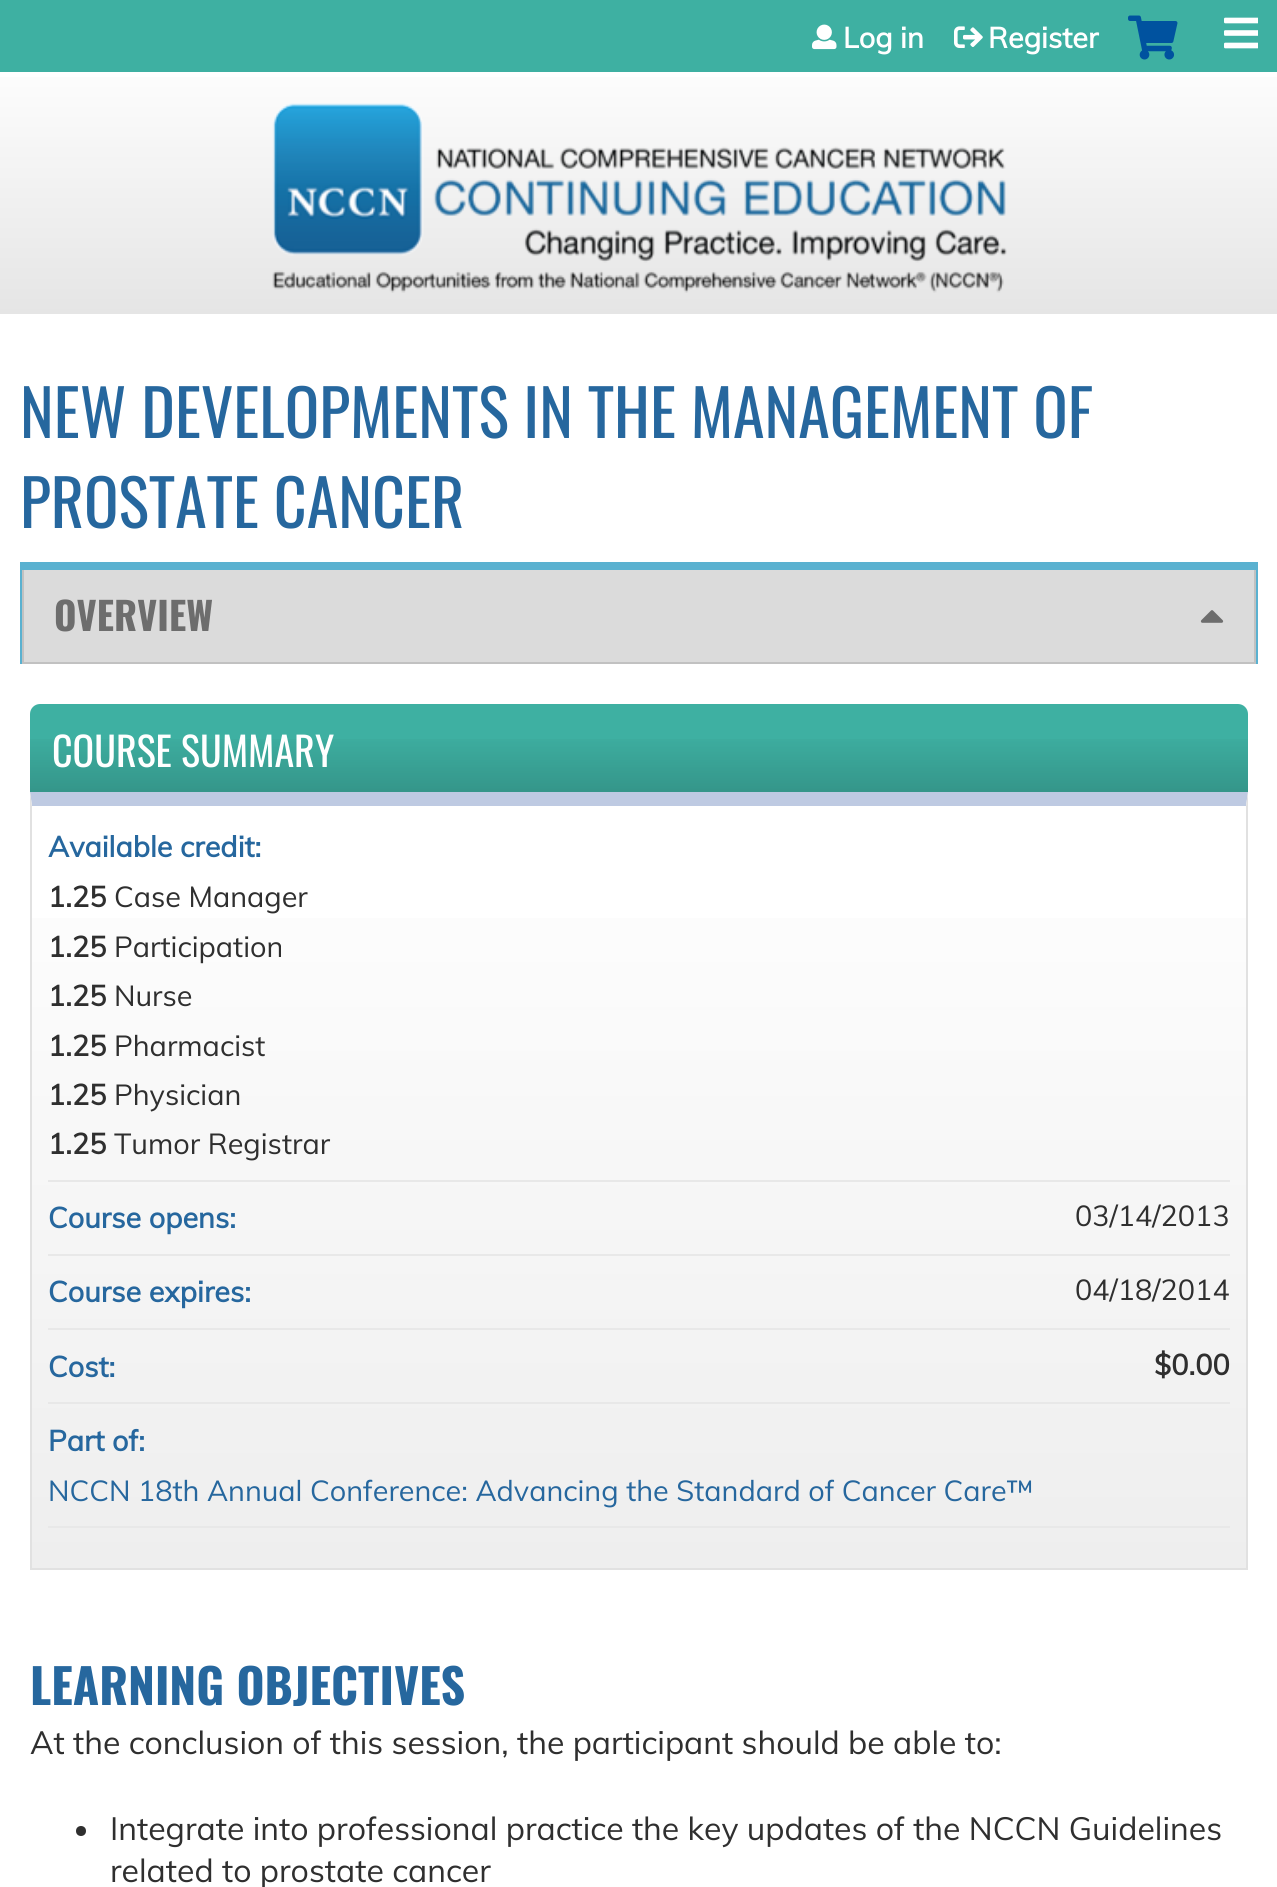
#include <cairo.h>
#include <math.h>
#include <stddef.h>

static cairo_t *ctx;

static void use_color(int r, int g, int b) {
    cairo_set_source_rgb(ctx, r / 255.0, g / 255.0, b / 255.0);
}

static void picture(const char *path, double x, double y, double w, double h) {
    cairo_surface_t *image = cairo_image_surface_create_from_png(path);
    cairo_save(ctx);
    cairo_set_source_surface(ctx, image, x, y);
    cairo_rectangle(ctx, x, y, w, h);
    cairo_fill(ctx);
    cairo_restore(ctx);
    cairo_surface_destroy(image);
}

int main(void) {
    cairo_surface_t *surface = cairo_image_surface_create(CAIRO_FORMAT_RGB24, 1277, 1887);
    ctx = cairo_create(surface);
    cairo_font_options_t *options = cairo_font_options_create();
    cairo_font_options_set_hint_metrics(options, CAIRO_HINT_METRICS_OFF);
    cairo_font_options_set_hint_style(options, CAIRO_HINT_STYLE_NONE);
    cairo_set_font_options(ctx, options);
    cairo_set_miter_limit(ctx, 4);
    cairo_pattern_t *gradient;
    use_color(255, 255, 255);
    cairo_paint(ctx);
    gradient = cairo_pattern_create_linear(639, 314, 639, 72);
    cairo_pattern_add_color_stop_rgba(gradient, 0, 0.898, 0.898, 0.898, 1);
    cairo_pattern_add_color_stop_rgba(gradient, 1, 0.992, 0.992, 0.992, 1);
    cairo_set_source(ctx, gradient);
    cairo_pattern_destroy(gradient);
    cairo_rectangle(ctx, 0, 77, 1277, 237);
    cairo_fill(ctx);
    use_color(62, 176, 162);
    cairo_rectangle(ctx, 0, 0, 1277, 72);
    cairo_fill(ctx);
    picture("img1.png", 812, 24, 25, 26);
    cairo_select_font_face(ctx, "Muli", CAIRO_FONT_SLANT_NORMAL, CAIRO_FONT_WEIGHT_BOLD);
    cairo_set_font_size(ctx, 28.8);
    use_color(255, 255, 255);
    cairo_move_to(ctx, 843, 48);
    cairo_show_text(ctx, "Log in");
    picture("img2.png", 954, 26, 29, 22);
    cairo_move_to(ctx, 988, 48);
    cairo_show_text(ctx, "Register");
    picture("img3.png", 1128, 15, 50, 45);
    picture("img4.png", 1224, 17, 34, 32);
    picture("img5.png", 272, 103, 735, 190);
    cairo_select_font_face(ctx, "Oswald", CAIRO_FONT_SLANT_NORMAL, CAIRO_FONT_WEIGHT_NORMAL);
    cairo_set_font_size(ctx, 64);
    use_color(38, 103, 158);
    cairo_move_to(ctx, 20, 438);
    cairo_show_text(ctx, "NEW DEVELOPMENTS IN THE MANAGEMENT OF");
    cairo_move_to(ctx, 20, 528);
    cairo_show_text(ctx, "PROSTATE CANCER");
    use_color(90, 177, 208);
    cairo_rectangle(ctx, 20, 562, 1238, 8);
    cairo_fill(ctx);
    cairo_rectangle(ctx, 1256, 562, 2, 102);
    cairo_fill(ctx);
    cairo_rectangle(ctx, 20, 562, 2, 102);
    cairo_fill(ctx);
    use_color(219, 219, 219);
    cairo_rectangle(ctx, 24, 570, 1230, 92);
    cairo_fill(ctx);
    use_color(193, 193, 193);
    cairo_rectangle(ctx, 1254, 570, 2, 94);
    cairo_fill(ctx);
    cairo_rectangle(ctx, 22, 662, 1234, 2);
    cairo_fill(ctx);
    cairo_rectangle(ctx, 22, 570, 2, 94);
    cairo_fill(ctx);
    cairo_select_font_face(ctx, "Oswald", CAIRO_FONT_SLANT_NORMAL, CAIRO_FONT_WEIGHT_BOLD);
    cairo_set_font_size(ctx, 38.5);
    use_color(109, 109, 109);
    cairo_move_to(ctx, 54, 631);
    cairo_show_text(ctx, "OVERVIEW");
    picture("img6.png", 1200, 610, 24, 13);
    use_color(62, 176, 162);
    cairo_new_path(ctx);
    cairo_move_to(ctx, 40, 704);
    cairo_line_to(ctx, 1238, 704);
    cairo_curve_to(ctx, 1243.5, 704, 1248, 708.5, 1248, 714);
    cairo_line_to(ctx, 1248, 792);
    cairo_line_to(ctx, 30, 792);
    cairo_line_to(ctx, 30, 714);
    cairo_curve_to(ctx, 30, 708.5, 34.5, 704, 40, 704);
    cairo_close_path(ctx);
    cairo_fill(ctx);
    gradient = cairo_pattern_create_linear(639, 792, 639, 704);
    cairo_pattern_add_color_stop_rgba(gradient, 0, 0, 0, 0, 0.15);
    cairo_pattern_add_color_stop_rgba(gradient, 0.7, 0, 0, 0, 0);
    cairo_set_source(ctx, gradient);
    cairo_pattern_destroy(gradient);
    cairo_rectangle(ctx, 30, 739, 1218, 53);
    cairo_fill(ctx);
    cairo_select_font_face(ctx, "Oswald", CAIRO_FONT_SLANT_NORMAL, CAIRO_FONT_WEIGHT_NORMAL);
    cairo_set_font_size(ctx, 40);
    use_color(255, 255, 255);
    cairo_move_to(ctx, 52, 767);
    cairo_show_text(ctx, "COURSE SUMMARY");
    gradient = cairo_pattern_create_linear(639, 1568, 639, 806);
    cairo_pattern_add_color_stop_rgba(gradient, 0, 0.933, 0.933, 0.933, 1);
    cairo_pattern_add_color_stop_rgba(gradient, 1, 1, 1, 1, 1);
    cairo_set_source(ctx, gradient);
    cairo_pattern_destroy(gradient);
    cairo_rectangle(ctx, 32, 918, 1214, 650);
    cairo_fill(ctx);
    use_color(190, 202, 226);
    cairo_new_path(ctx);
    cairo_move_to(ctx, 30, 792);
    cairo_line_to(ctx, 1248, 792);
    cairo_line_to(ctx, 1246, 806);
    cairo_line_to(ctx, 32, 806);
    cairo_close_path(ctx);
    cairo_fill(ctx);
    use_color(225, 225, 225);
    cairo_new_path(ctx);
    cairo_move_to(ctx, 1248, 792);
    cairo_line_to(ctx, 1248, 1570);
    cairo_line_to(ctx, 1246, 1568);
    cairo_line_to(ctx, 1246, 806);
    cairo_close_path(ctx);
    cairo_fill(ctx);
    cairo_rectangle(ctx, 30, 1568, 1218, 2);
    cairo_fill(ctx);
    cairo_new_path(ctx);
    cairo_move_to(ctx, 30, 1570);
    cairo_line_to(ctx, 30, 792);
    cairo_line_to(ctx, 32, 806);
    cairo_line_to(ctx, 32, 1568);
    cairo_close_path(ctx);
    cairo_fill(ctx);
    use_color(232, 232, 232);
    cairo_rectangle(ctx, 48, 1180, 1182, 2);
    cairo_fill(ctx);
    cairo_select_font_face(ctx, "Muli", CAIRO_FONT_SLANT_NORMAL, CAIRO_FONT_WEIGHT_BOLD);
    cairo_set_font_size(ctx, 28.8);
    use_color(38, 103, 158);
    cairo_move_to(ctx, 48, 857);
    cairo_show_text(ctx, "Available credit:");
    use_color(47, 47, 47);
    cairo_move_to(ctx, 48, 907);
    cairo_show_text(ctx, "1.25");
    cairo_select_font_face(ctx, "Muli", CAIRO_FONT_SLANT_NORMAL, CAIRO_FONT_WEIGHT_NORMAL);
    cairo_move_to(ctx, 114, 907);
    cairo_show_text(ctx, "Case Manager");
    cairo_select_font_face(ctx, "Muli", CAIRO_FONT_SLANT_NORMAL, CAIRO_FONT_WEIGHT_BOLD);
    cairo_move_to(ctx, 48, 957);
    cairo_show_text(ctx, "1.25");
    cairo_select_font_face(ctx, "Muli", CAIRO_FONT_SLANT_NORMAL, CAIRO_FONT_WEIGHT_NORMAL);
    cairo_move_to(ctx, 114, 957);
    cairo_show_text(ctx, "Participation");
    cairo_select_font_face(ctx, "Muli", CAIRO_FONT_SLANT_NORMAL, CAIRO_FONT_WEIGHT_BOLD);
    cairo_move_to(ctx, 48, 1006);
    cairo_show_text(ctx, "1.25");
    cairo_select_font_face(ctx, "Muli", CAIRO_FONT_SLANT_NORMAL, CAIRO_FONT_WEIGHT_NORMAL);
    cairo_move_to(ctx, 114, 1006);
    cairo_show_text(ctx, "Nurse");
    cairo_select_font_face(ctx, "Muli", CAIRO_FONT_SLANT_NORMAL, CAIRO_FONT_WEIGHT_BOLD);
    cairo_move_to(ctx, 48, 1056);
    cairo_show_text(ctx, "1.25");
    cairo_select_font_face(ctx, "Muli", CAIRO_FONT_SLANT_NORMAL, CAIRO_FONT_WEIGHT_NORMAL);
    cairo_move_to(ctx, 114, 1056);
    cairo_show_text(ctx, "Pharmacist");
    cairo_select_font_face(ctx, "Muli", CAIRO_FONT_SLANT_NORMAL, CAIRO_FONT_WEIGHT_BOLD);
    cairo_move_to(ctx, 48, 1105);
    cairo_show_text(ctx, "1.25");
    cairo_select_font_face(ctx, "Muli", CAIRO_FONT_SLANT_NORMAL, CAIRO_FONT_WEIGHT_NORMAL);
    cairo_move_to(ctx, 114, 1105);
    cairo_show_text(ctx, "Physician");
    cairo_select_font_face(ctx, "Muli", CAIRO_FONT_SLANT_NORMAL, CAIRO_FONT_WEIGHT_BOLD);
    cairo_move_to(ctx, 48, 1154);
    cairo_show_text(ctx, "1.25");
    cairo_select_font_face(ctx, "Muli", CAIRO_FONT_SLANT_NORMAL, CAIRO_FONT_WEIGHT_NORMAL);
    cairo_move_to(ctx, 114, 1154);
    cairo_show_text(ctx, "Tumor Registrar");
    use_color(232, 232, 232);
    cairo_rectangle(ctx, 48, 1254, 1182, 2);
    cairo_fill(ctx);
    cairo_select_font_face(ctx, "Muli", CAIRO_FONT_SLANT_NORMAL, CAIRO_FONT_WEIGHT_BOLD);
    use_color(38, 103, 158);
    cairo_move_to(ctx, 48, 1228);
    cairo_show_text(ctx, "Course opens:");
    cairo_select_font_face(ctx, "Muli", CAIRO_FONT_SLANT_NORMAL, CAIRO_FONT_WEIGHT_NORMAL);
    use_color(47, 47, 47);
    cairo_move_to(ctx, 1075, 1226);
    cairo_show_text(ctx, "03/14/2013");
    use_color(232, 232, 232);
    cairo_rectangle(ctx, 48, 1328, 1182, 2);
    cairo_fill(ctx);
    cairo_select_font_face(ctx, "Muli", CAIRO_FONT_SLANT_NORMAL, CAIRO_FONT_WEIGHT_BOLD);
    use_color(38, 103, 158);
    cairo_move_to(ctx, 48, 1302);
    cairo_show_text(ctx, "Course expires:");
    cairo_select_font_face(ctx, "Muli", CAIRO_FONT_SLANT_NORMAL, CAIRO_FONT_WEIGHT_NORMAL);
    use_color(47, 47, 47);
    cairo_move_to(ctx, 1075, 1300);
    cairo_show_text(ctx, "04/18/2014");
    use_color(232, 232, 232);
    cairo_rectangle(ctx, 48, 1402, 1182, 2);
    cairo_fill(ctx);
    cairo_select_font_face(ctx, "Muli", CAIRO_FONT_SLANT_NORMAL, CAIRO_FONT_WEIGHT_BOLD);
    use_color(38, 103, 158);
    cairo_move_to(ctx, 48, 1377);
    cairo_show_text(ctx, "Cost:");
    use_color(47, 47, 47);
    cairo_move_to(ctx, 1154, 1375);
    cairo_show_text(ctx, "$0.00");
    use_color(232, 232, 232);
    cairo_rectangle(ctx, 48, 1526, 1182, 2);
    cairo_fill(ctx);
    use_color(38, 103, 158);
    cairo_move_to(ctx, 48, 1451);
    cairo_show_text(ctx, "Part of:");
    cairo_select_font_face(ctx, "Muli", CAIRO_FONT_SLANT_NORMAL, CAIRO_FONT_WEIGHT_NORMAL);
    cairo_move_to(ctx, 48, 1501);
    cairo_show_text(ctx, "NCCN 18th Annual Conference: Advancing the Standard of Cancer Care™");
    cairo_select_font_face(ctx, "Oswald", CAIRO_FONT_SLANT_NORMAL, CAIRO_FONT_WEIGHT_BOLD);
    cairo_set_font_size(ctx, 48);
    cairo_move_to(ctx, 30, 1705);
    cairo_show_text(ctx, "LEARNING OBJECTIVES");
    cairo_select_font_face(ctx, "Muli", CAIRO_FONT_SLANT_NORMAL, CAIRO_FONT_WEIGHT_NORMAL);
    cairo_set_font_size(ctx, 32);
    use_color(47, 47, 47);
    cairo_move_to(ctx, 30, 1754);
    cairo_show_text(ctx, "At the conclusion of this session, the participant should be able to:");
    cairo_new_path(ctx);
    cairo_arc(ctx, 81, 1831, 5, 0, 2 * M_PI);
    cairo_fill(ctx);
    cairo_move_to(ctx, 110, 1840);
    cairo_show_text(ctx, "Integrate into professional practice the key updates of the NCCN Guidelines");
    cairo_move_to(ctx, 110, 1882);
    cairo_show_text(ctx, "related to prostate cancer");
    cairo_surface_write_to_png(surface, "result.png");
    cairo_font_options_destroy(options);
    cairo_destroy(ctx);
    cairo_surface_destroy(surface);
    return 0;
}
